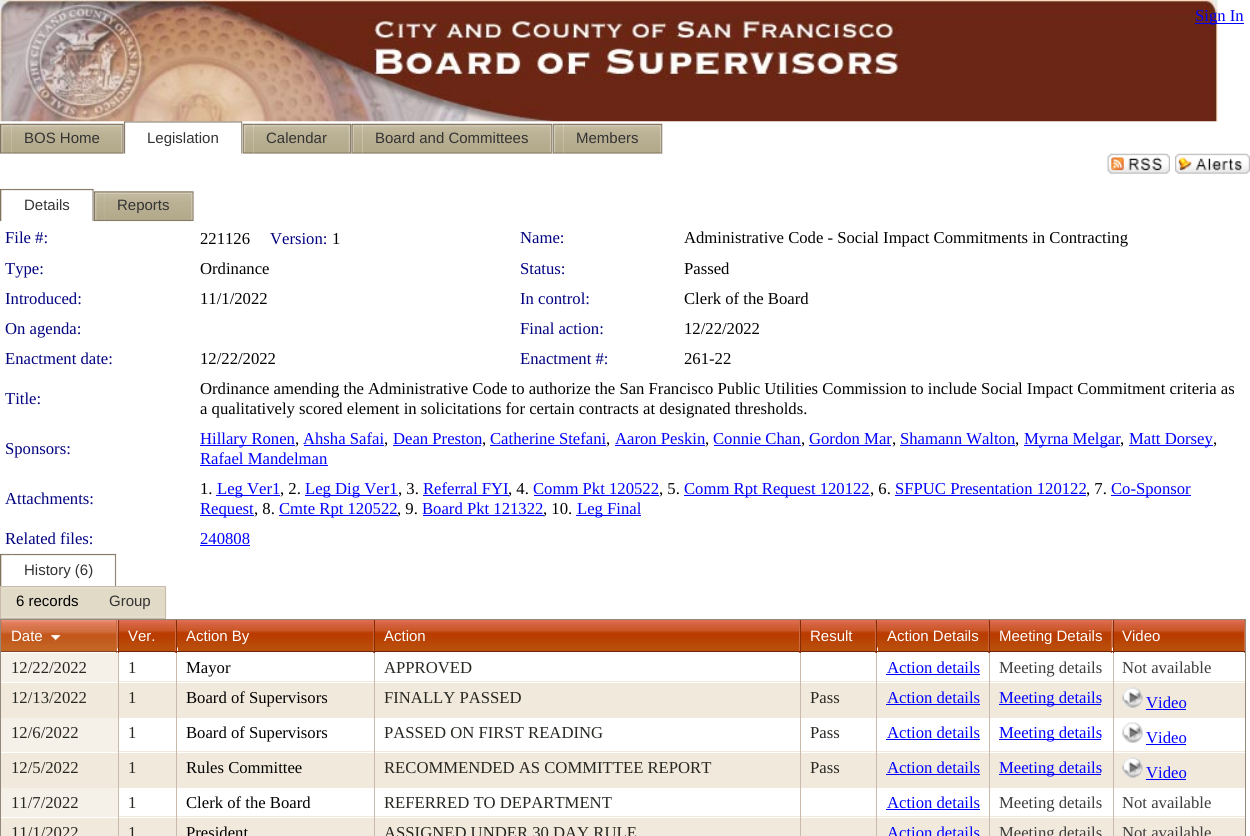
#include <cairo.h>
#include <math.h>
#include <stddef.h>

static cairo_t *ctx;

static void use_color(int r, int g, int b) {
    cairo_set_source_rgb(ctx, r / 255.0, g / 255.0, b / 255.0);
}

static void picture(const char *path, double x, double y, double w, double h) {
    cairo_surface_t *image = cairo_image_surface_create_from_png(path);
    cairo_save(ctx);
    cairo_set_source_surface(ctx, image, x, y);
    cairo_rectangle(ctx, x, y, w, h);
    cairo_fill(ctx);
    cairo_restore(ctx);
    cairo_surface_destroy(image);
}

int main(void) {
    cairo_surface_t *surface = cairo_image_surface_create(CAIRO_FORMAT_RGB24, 1250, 836);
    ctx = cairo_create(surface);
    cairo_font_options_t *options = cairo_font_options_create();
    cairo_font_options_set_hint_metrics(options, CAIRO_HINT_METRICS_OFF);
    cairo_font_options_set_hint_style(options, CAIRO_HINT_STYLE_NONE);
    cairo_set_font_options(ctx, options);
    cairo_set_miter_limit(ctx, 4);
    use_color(255, 255, 255);
    cairo_paint(ctx);
    picture("img1.png", 0, 0, 1218, 122);
    use_color(0, 0, 255);
    cairo_rectangle(ctx, 1195, 23, 49, 1);
    cairo_fill(ctx);
    cairo_select_font_face(ctx, "Liberation Serif", CAIRO_FONT_SLANT_NORMAL, CAIRO_FONT_WEIGHT_NORMAL);
    cairo_set_font_size(ctx, 16.67);
    cairo_move_to(ctx, 1195, 21);
    cairo_show_text(ctx, "Sign In");
    picture("img2.png", 0, 123, 12, 31);
    picture("img3.png", 11, 123, 113, 31);
    cairo_select_font_face(ctx, "Liberation Sans", CAIRO_FONT_SLANT_NORMAL, CAIRO_FONT_WEIGHT_NORMAL);
    cairo_set_font_size(ctx, 15);
    use_color(51, 51, 51);
    cairo_move_to(ctx, 24, 143);
    cairo_show_text(ctx, "BOS Home");
    picture("img4.png", 123, 121, 13, 33);
    picture("img5.png", 135, 121, 108, 33);
    cairo_move_to(ctx, 147, 143);
    cairo_show_text(ctx, "Legislation");
    picture("img6.png", 242, 123, 12, 31);
    picture("img7.png", 253, 123, 99, 31);
    cairo_move_to(ctx, 266, 143);
    cairo_show_text(ctx, "Calendar");
    picture("img8.png", 351, 123, 12, 31);
    picture("img9.png", 362, 123, 191, 31);
    cairo_move_to(ctx, 375, 143);
    cairo_show_text(ctx, "Board and Committees");
    picture("img10.png", 552, 123, 12, 31);
    picture("img11.png", 563, 123, 100, 31);
    cairo_move_to(ctx, 576, 143);
    cairo_show_text(ctx, "Members");
    picture("img12.png", 1107, 153, 63, 21);
    picture("img13.png", 1175, 153, 75, 21);
    picture("img14.png", 0, 188, 12, 34);
    picture("img15.png", 11, 188, 83, 34);
    cairo_move_to(ctx, 24, 210);
    cairo_show_text(ctx, "Details");
    picture("img16.png", 93, 191, 13, 31);
    picture("img17.png", 105, 191, 89, 31);
    cairo_move_to(ctx, 117, 210);
    cairo_show_text(ctx, "Reports");
    cairo_select_font_face(ctx, "Liberation Serif", CAIRO_FONT_SLANT_NORMAL, CAIRO_FONT_WEIGHT_NORMAL);
    cairo_set_font_size(ctx, 16.67);
    use_color(0, 0, 128);
    cairo_move_to(ctx, 5, 243);
    cairo_show_text(ctx, "File #:");
    use_color(0, 0, 0);
    cairo_move_to(ctx, 200, 244);
    cairo_show_text(ctx, "221126");
    use_color(0, 0, 128);
    cairo_move_to(ctx, 270, 244);
    cairo_show_text(ctx, "Version:");
    use_color(0, 0, 0);
    cairo_move_to(ctx, 332, 244);
    cairo_show_text(ctx, "1");
    use_color(0, 0, 128);
    cairo_move_to(ctx, 520, 243);
    cairo_show_text(ctx, "Name:");
    use_color(0, 0, 0);
    cairo_move_to(ctx, 684, 243);
    cairo_show_text(ctx, "Administrative Code - Social Impact Commitments in Contracting");
    use_color(0, 0, 128);
    cairo_move_to(ctx, 5, 274);
    cairo_show_text(ctx, "Type:");
    use_color(0, 0, 0);
    cairo_move_to(ctx, 200, 274);
    cairo_show_text(ctx, "Ordinance");
    use_color(0, 0, 128);
    cairo_move_to(ctx, 520, 274);
    cairo_show_text(ctx, "Status:");
    use_color(0, 0, 0);
    cairo_move_to(ctx, 684, 274);
    cairo_show_text(ctx, "Passed");
    use_color(0, 0, 128);
    cairo_move_to(ctx, 5, 304);
    cairo_show_text(ctx, "Introduced:");
    use_color(0, 0, 0);
    cairo_move_to(ctx, 200, 304);
    cairo_show_text(ctx, "11/1/2022");
    use_color(0, 0, 128);
    cairo_move_to(ctx, 520, 304);
    cairo_show_text(ctx, "In control:");
    use_color(0, 0, 0);
    cairo_move_to(ctx, 684, 304);
    cairo_show_text(ctx, "Clerk of the Board");
    use_color(0, 0, 128);
    cairo_move_to(ctx, 5, 334);
    cairo_show_text(ctx, "On agenda:");
    cairo_move_to(ctx, 520, 334);
    cairo_show_text(ctx, "Final action:");
    use_color(0, 0, 0);
    cairo_move_to(ctx, 684, 334);
    cairo_show_text(ctx, "12/22/2022");
    use_color(0, 0, 128);
    cairo_move_to(ctx, 5, 364);
    cairo_show_text(ctx, "Enactment date:");
    use_color(0, 0, 0);
    cairo_move_to(ctx, 200, 364);
    cairo_show_text(ctx, "12/22/2022");
    use_color(0, 0, 128);
    cairo_move_to(ctx, 520, 364);
    cairo_show_text(ctx, "Enactment #:");
    use_color(0, 0, 0);
    cairo_move_to(ctx, 684, 364);
    cairo_show_text(ctx, "261-22");
    use_color(0, 0, 128);
    cairo_move_to(ctx, 5, 404);
    cairo_show_text(ctx, "Title:");
    use_color(0, 0, 0);
    cairo_move_to(ctx, 200, 394);
    cairo_show_text(ctx, "Ordinance amending the Administrative Code to authorize the San Francisco Public Utilities Commission to include Social Impact Commitment criteria as");
    cairo_move_to(ctx, 200, 414);
    cairo_show_text(ctx, "a qualitatively scored element in solicitations for certain contracts at designated thresholds.");
    use_color(0, 0, 128);
    cairo_move_to(ctx, 5, 454);
    cairo_show_text(ctx, "Sponsors:");
    use_color(0, 0, 255);
    cairo_rectangle(ctx, 200, 445, 95, 1);
    cairo_fill(ctx);
    cairo_move_to(ctx, 200, 444);
    cairo_show_text(ctx, "Hillary Ronen");
    use_color(0, 0, 0);
    cairo_move_to(ctx, 295, 444);
    cairo_show_text(ctx, ",");
    use_color(0, 0, 255);
    cairo_move_to(ctx, 303, 444);
    cairo_show_text(ctx, "Ahsha Safai");
    use_color(0, 0, 0);
    cairo_move_to(ctx, 384, 444);
    cairo_show_text(ctx, ",");
    use_color(0, 0, 255);
    cairo_rectangle(ctx, 304, 445, 80, 1);
    cairo_fill(ctx);
    cairo_move_to(ctx, 393, 444);
    cairo_show_text(ctx, "Dean Preston");
    use_color(0, 0, 0);
    cairo_move_to(ctx, 482, 444);
    cairo_show_text(ctx, ",");
    use_color(0, 0, 255);
    cairo_rectangle(ctx, 393, 445, 88, 1);
    cairo_fill(ctx);
    cairo_move_to(ctx, 490, 444);
    cairo_show_text(ctx, "Catherine Stefani");
    use_color(0, 0, 0);
    cairo_move_to(ctx, 606, 444);
    cairo_show_text(ctx, ",");
    use_color(0, 0, 255);
    cairo_rectangle(ctx, 490, 445, 116, 1);
    cairo_fill(ctx);
    cairo_move_to(ctx, 615, 444);
    cairo_show_text(ctx, "Aaron Peskin");
    use_color(0, 0, 0);
    cairo_move_to(ctx, 705, 444);
    cairo_show_text(ctx, ",");
    use_color(0, 0, 255);
    cairo_rectangle(ctx, 615, 445, 90, 1);
    cairo_fill(ctx);
    cairo_move_to(ctx, 713, 444);
    cairo_show_text(ctx, "Connie Chan");
    use_color(0, 0, 0);
    cairo_move_to(ctx, 801, 444);
    cairo_show_text(ctx, ",");
    use_color(0, 0, 255);
    cairo_rectangle(ctx, 714, 445, 87, 1);
    cairo_fill(ctx);
    cairo_move_to(ctx, 809, 444);
    cairo_show_text(ctx, "Gordon Mar");
    use_color(0, 0, 0);
    cairo_move_to(ctx, 892, 444);
    cairo_show_text(ctx, ",");
    use_color(0, 0, 255);
    cairo_rectangle(ctx, 809, 445, 82, 1);
    cairo_fill(ctx);
    cairo_move_to(ctx, 900, 444);
    cairo_show_text(ctx, "Shamann Walton");
    use_color(0, 0, 0);
    cairo_move_to(ctx, 1015, 444);
    cairo_show_text(ctx, ",");
    use_color(0, 0, 255);
    cairo_rectangle(ctx, 900, 445, 115, 1);
    cairo_fill(ctx);
    cairo_rectangle(ctx, 1024, 445, 96, 1);
    cairo_fill(ctx);
    cairo_move_to(ctx, 1024, 444);
    cairo_show_text(ctx, "Myrna Melgar");
    use_color(0, 0, 0);
    cairo_move_to(ctx, 1120, 444);
    cairo_show_text(ctx, ",");
    use_color(0, 0, 255);
    cairo_rectangle(ctx, 1129, 445, 84, 1);
    cairo_fill(ctx);
    cairo_move_to(ctx, 1129, 444);
    cairo_show_text(ctx, "Matt Dorsey");
    use_color(0, 0, 0);
    cairo_move_to(ctx, 1213, 444);
    cairo_show_text(ctx, ",");
    use_color(0, 0, 255);
    cairo_move_to(ctx, 200, 464);
    cairo_show_text(ctx, "Rafael Mandelman");
    cairo_rectangle(ctx, 200, 465, 128, 1);
    cairo_fill(ctx);
    use_color(0, 0, 128);
    cairo_move_to(ctx, 5, 504);
    cairo_show_text(ctx, "Attachments:");
    use_color(0, 0, 0);
    cairo_move_to(ctx, 200, 494);
    cairo_show_text(ctx, "1.");
    use_color(0, 0, 255);
    cairo_rectangle(ctx, 216, 495, 64, 1);
    cairo_fill(ctx);
    cairo_move_to(ctx, 217, 494);
    cairo_show_text(ctx, "Leg Ver1");
    use_color(0, 0, 0);
    cairo_move_to(ctx, 280, 494);
    cairo_show_text(ctx, ", 2.");
    use_color(0, 0, 255);
    cairo_rectangle(ctx, 305, 495, 93, 1);
    cairo_fill(ctx);
    cairo_move_to(ctx, 305, 494);
    cairo_show_text(ctx, "Leg Dig Ver1");
    use_color(0, 0, 0);
    cairo_move_to(ctx, 398, 494);
    cairo_show_text(ctx, ", 3.");
    use_color(0, 0, 255);
    cairo_move_to(ctx, 423, 494);
    cairo_show_text(ctx, "Referral FYI");
    cairo_rectangle(ctx, 423, 495, 86, 1);
    cairo_fill(ctx);
    use_color(0, 0, 0);
    cairo_move_to(ctx, 508, 494);
    cairo_show_text(ctx, ", 4.");
    use_color(0, 0, 255);
    cairo_move_to(ctx, 533, 494);
    cairo_show_text(ctx, "Comm Pkt 120522");
    use_color(0, 0, 0);
    cairo_move_to(ctx, 659, 494);
    cairo_show_text(ctx, ", 5.");
    use_color(0, 0, 255);
    cairo_rectangle(ctx, 534, 495, 125, 1);
    cairo_fill(ctx);
    cairo_rectangle(ctx, 684, 495, 186, 1);
    cairo_fill(ctx);
    cairo_move_to(ctx, 684, 494);
    cairo_show_text(ctx, "Comm Rpt Request 120122");
    use_color(0, 0, 0);
    cairo_move_to(ctx, 870, 494);
    cairo_show_text(ctx, ", 6.");
    use_color(0, 0, 255);
    cairo_move_to(ctx, 895, 494);
    cairo_show_text(ctx, "SFPUC Presentation 120122");
    use_color(0, 0, 0);
    cairo_move_to(ctx, 1086, 494);
    cairo_show_text(ctx, ", 7.");
    use_color(0, 0, 255);
    cairo_rectangle(ctx, 895, 495, 191, 1);
    cairo_fill(ctx);
    cairo_rectangle(ctx, 1111, 495, 80, 1);
    cairo_fill(ctx);
    cairo_move_to(ctx, 1111, 494);
    cairo_show_text(ctx, "Co-Sponsor");
    cairo_rectangle(ctx, 200, 515, 54, 1);
    cairo_fill(ctx);
    cairo_move_to(ctx, 200, 514);
    cairo_show_text(ctx, "Request");
    use_color(0, 0, 0);
    cairo_move_to(ctx, 254, 514);
    cairo_show_text(ctx, ", 8.");
    use_color(0, 0, 255);
    cairo_rectangle(ctx, 279, 515, 119, 1);
    cairo_fill(ctx);
    cairo_move_to(ctx, 279, 514);
    cairo_show_text(ctx, "Cmte Rpt 120522");
    use_color(0, 0, 0);
    cairo_move_to(ctx, 397, 514);
    cairo_show_text(ctx, ", 9.");
    use_color(0, 0, 255);
    cairo_move_to(ctx, 422, 514);
    cairo_show_text(ctx, "Board Pkt 121322");
    use_color(0, 0, 0);
    cairo_move_to(ctx, 543, 514);
    cairo_show_text(ctx, ", 10.");
    use_color(0, 0, 255);
    cairo_rectangle(ctx, 423, 515, 121, 1);
    cairo_fill(ctx);
    cairo_rectangle(ctx, 576, 515, 65, 1);
    cairo_fill(ctx);
    cairo_move_to(ctx, 577, 514);
    cairo_show_text(ctx, "Leg Final");
    use_color(0, 0, 128);
    cairo_move_to(ctx, 5, 544);
    cairo_show_text(ctx, "Related files:");
    use_color(0, 0, 255);
    cairo_move_to(ctx, 200, 544);
    cairo_show_text(ctx, "240808");
    cairo_rectangle(ctx, 200, 545, 50, 1);
    cairo_fill(ctx);
    picture("img18.png", 0, 553, 12, 33);
    picture("img19.png", 11, 553, 106, 33);
    cairo_select_font_face(ctx, "Liberation Sans", CAIRO_FONT_SLANT_NORMAL, CAIRO_FONT_WEIGHT_NORMAL);
    cairo_set_font_size(ctx, 15);
    use_color(51, 51, 51);
    cairo_move_to(ctx, 24, 575);
    cairo_show_text(ctx, "History (6)");
    use_color(225, 218, 199);
    cairo_rectangle(ctx, 1, 587, 164, 31);
    cairo_fill(ctx);
    picture("img20.png", 1, 587, 166, 31);
    cairo_rectangle(ctx, 0.5, 586.5, 165, 32);
    use_color(202, 186, 171);
    cairo_set_line_width(ctx, 1);
    cairo_stroke(ctx);
    use_color(0, 0, 0);
    cairo_move_to(ctx, 16, 606);
    cairo_show_text(ctx, "6 records");
    use_color(51, 51, 51);
    cairo_move_to(ctx, 109, 606);
    cairo_show_text(ctx, "Group");
    cairo_rectangle(ctx, 0.5, 619.5, 1245, 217);
    use_color(147, 136, 121);
    cairo_stroke(ctx);
    use_color(195, 102, 36);
    cairo_rectangle(ctx, 1, 620, 115, 31);
    cairo_fill(ctx);
    picture("img21.png", 1, 620, 117, 29);
    use_color(205, 106, 63);
    cairo_rectangle(ctx, 116, 620, 1, 33);
    cairo_fill(ctx);
    use_color(133, 67, 36);
    cairo_rectangle(ctx, 1, 651, 117, 1);
    cairo_fill(ctx);
    use_color(255, 255, 255);
    cairo_move_to(ctx, 11, 641);
    cairo_show_text(ctx, "Date");
    picture("img22.png", 51, 634, 10, 7);
    use_color(185, 77, 10);
    cairo_rectangle(ctx, 119, 620, 56, 31);
    cairo_fill(ctx);
    picture("img23.png", 117, 620, 58, 28);
    use_color(205, 106, 63);
    cairo_rectangle(ctx, 175, 620, 1, 33);
    cairo_fill(ctx);
    use_color(113, 37, 10);
    cairo_rectangle(ctx, 118, 651, 58, 1);
    cairo_fill(ctx);
    use_color(135, 43, 7);
    cairo_rectangle(ctx, 118, 620, 1, 33);
    cairo_fill(ctx);
    use_color(255, 255, 255);
    cairo_move_to(ctx, 128, 641);
    cairo_show_text(ctx, "Ver.");
    use_color(185, 77, 10);
    cairo_rectangle(ctx, 178, 620, 195, 31);
    cairo_fill(ctx);
    picture("img24.png", 177, 620, 196, 28);
    use_color(205, 106, 63);
    cairo_rectangle(ctx, 373, 620, 1, 33);
    cairo_fill(ctx);
    use_color(113, 37, 10);
    cairo_rectangle(ctx, 176, 651, 198, 1);
    cairo_fill(ctx);
    use_color(135, 43, 7);
    cairo_rectangle(ctx, 176, 620, 1, 33);
    cairo_fill(ctx);
    use_color(255, 255, 255);
    cairo_move_to(ctx, 186, 641);
    cairo_show_text(ctx, "Action By");
    use_color(185, 77, 10);
    cairo_rectangle(ctx, 375, 620, 424, 31);
    cairo_fill(ctx);
    picture("img25.png", 373, 620, 426, 28);
    use_color(205, 106, 63);
    cairo_rectangle(ctx, 799, 620, 1, 33);
    cairo_fill(ctx);
    use_color(113, 37, 10);
    cairo_rectangle(ctx, 374, 651, 426, 1);
    cairo_fill(ctx);
    use_color(135, 43, 7);
    cairo_rectangle(ctx, 374, 620, 1, 33);
    cairo_fill(ctx);
    use_color(255, 255, 255);
    cairo_move_to(ctx, 384, 641);
    cairo_show_text(ctx, "Action");
    use_color(185, 77, 10);
    cairo_rectangle(ctx, 801, 620, 74, 31);
    cairo_fill(ctx);
    picture("img26.png", 801, 620, 74, 28);
    use_color(205, 106, 63);
    cairo_rectangle(ctx, 875, 620, 1, 33);
    cairo_fill(ctx);
    use_color(113, 37, 10);
    cairo_rectangle(ctx, 800, 651, 76, 1);
    cairo_fill(ctx);
    use_color(135, 43, 7);
    cairo_rectangle(ctx, 800, 620, 1, 33);
    cairo_fill(ctx);
    use_color(255, 255, 255);
    cairo_move_to(ctx, 810, 641);
    cairo_show_text(ctx, "Result");
    use_color(185, 77, 10);
    cairo_rectangle(ctx, 878, 620, 110, 31);
    cairo_fill(ctx);
    picture("img27.png", 877, 620, 111, 28);
    use_color(205, 106, 63);
    cairo_rectangle(ctx, 988, 620, 1, 33);
    cairo_fill(ctx);
    use_color(113, 37, 10);
    cairo_rectangle(ctx, 876, 651, 113, 1);
    cairo_fill(ctx);
    use_color(135, 43, 7);
    cairo_rectangle(ctx, 876, 620, 1, 33);
    cairo_fill(ctx);
    use_color(255, 255, 255);
    cairo_move_to(ctx, 887, 641);
    cairo_show_text(ctx, "Action Details");
    use_color(185, 77, 10);
    cairo_rectangle(ctx, 990, 620, 121, 31);
    cairo_fill(ctx);
    picture("img28.png", 988, 620, 125, 28);
    use_color(205, 106, 63);
    cairo_rectangle(ctx, 1111, 620, 1, 33);
    cairo_fill(ctx);
    use_color(113, 37, 10);
    cairo_rectangle(ctx, 989, 651, 124, 1);
    cairo_fill(ctx);
    use_color(135, 43, 7);
    cairo_rectangle(ctx, 989, 620, 1, 33);
    cairo_fill(ctx);
    use_color(255, 255, 255);
    cairo_move_to(ctx, 999, 641);
    cairo_show_text(ctx, "Meeting Details");
    use_color(185, 77, 10);
    cairo_rectangle(ctx, 1114, 620, 130, 31);
    cairo_fill(ctx);
    picture("img29.png", 1112, 620, 132, 28);
    use_color(205, 106, 63);
    cairo_rectangle(ctx, 1244, 620, 1, 33);
    cairo_fill(ctx);
    use_color(113, 37, 10);
    cairo_rectangle(ctx, 1113, 651, 132, 1);
    cairo_fill(ctx);
    use_color(135, 43, 7);
    cairo_rectangle(ctx, 1113, 620, 1, 33);
    cairo_fill(ctx);
    use_color(255, 255, 255);
    cairo_move_to(ctx, 1122, 641);
    cairo_show_text(ctx, "Video");
    use_color(246, 241, 232);
    cairo_rectangle(ctx, 1, 653, 117, 29);
    cairo_fill(ctx);
    cairo_select_font_face(ctx, "Liberation Serif", CAIRO_FONT_SLANT_NORMAL, CAIRO_FONT_WEIGHT_NORMAL);
    cairo_set_font_size(ctx, 16.67);
    use_color(39, 39, 34);
    cairo_move_to(ctx, 11, 673);
    cairo_show_text(ctx, "12/22/2022");
    use_color(241, 233, 220);
    cairo_rectangle(ctx, 118, 681, 1127, 1);
    cairo_fill(ctx);
    use_color(202, 186, 171);
    cairo_rectangle(ctx, 118, 653, 1, 30);
    cairo_fill(ctx);
    use_color(39, 39, 34);
    cairo_move_to(ctx, 128, 673);
    cairo_show_text(ctx, "1");
    use_color(202, 186, 171);
    cairo_rectangle(ctx, 176, 653, 1, 30);
    cairo_fill(ctx);
    use_color(0, 0, 0);
    cairo_move_to(ctx, 186, 673);
    cairo_show_text(ctx, "Mayor");
    use_color(202, 186, 171);
    cairo_rectangle(ctx, 374, 653, 1, 30);
    cairo_fill(ctx);
    use_color(39, 39, 34);
    cairo_move_to(ctx, 384, 673);
    cairo_show_text(ctx, "APPROVED");
    use_color(202, 186, 171);
    cairo_rectangle(ctx, 800, 653, 1, 30);
    cairo_fill(ctx);
    cairo_rectangle(ctx, 876, 653, 1, 30);
    cairo_fill(ctx);
    use_color(0, 0, 255);
    cairo_move_to(ctx, 887, 673);
    cairo_show_text(ctx, "Action details");
    cairo_rectangle(ctx, 886, 674, 94, 1);
    cairo_fill(ctx);
    use_color(202, 186, 171);
    cairo_rectangle(ctx, 989, 653, 1, 30);
    cairo_fill(ctx);
    use_color(61, 61, 61);
    cairo_move_to(ctx, 999, 673);
    cairo_show_text(ctx, "Meeting details");
    use_color(202, 186, 171);
    cairo_rectangle(ctx, 1113, 653, 1, 30);
    cairo_fill(ctx);
    use_color(61, 61, 61);
    cairo_move_to(ctx, 1122, 673);
    cairo_show_text(ctx, "Not available");
    use_color(241, 233, 220);
    cairo_rectangle(ctx, 1, 683, 1244, 35);
    cairo_fill(ctx);
    use_color(39, 39, 34);
    cairo_move_to(ctx, 11, 703);
    cairo_show_text(ctx, "12/13/2022");
    use_color(202, 186, 171);
    cairo_rectangle(ctx, 118, 683, 1, 35);
    cairo_fill(ctx);
    use_color(39, 39, 34);
    cairo_move_to(ctx, 128, 703);
    cairo_show_text(ctx, "1");
    use_color(202, 186, 171);
    cairo_rectangle(ctx, 176, 683, 1, 35);
    cairo_fill(ctx);
    use_color(0, 0, 0);
    cairo_move_to(ctx, 186, 703);
    cairo_show_text(ctx, "Board of Supervisors");
    use_color(202, 186, 171);
    cairo_rectangle(ctx, 374, 683, 1, 35);
    cairo_fill(ctx);
    use_color(39, 39, 34);
    cairo_move_to(ctx, 384, 703);
    cairo_show_text(ctx, "FINALLY PASSED");
    use_color(202, 186, 171);
    cairo_rectangle(ctx, 800, 683, 1, 35);
    cairo_fill(ctx);
    use_color(39, 39, 34);
    cairo_move_to(ctx, 810, 703);
    cairo_show_text(ctx, "Pass");
    use_color(202, 186, 171);
    cairo_rectangle(ctx, 876, 683, 1, 35);
    cairo_fill(ctx);
    use_color(0, 0, 255);
    cairo_move_to(ctx, 887, 703);
    cairo_show_text(ctx, "Action details");
    cairo_rectangle(ctx, 886, 704, 94, 1);
    cairo_fill(ctx);
    use_color(202, 186, 171);
    cairo_rectangle(ctx, 989, 683, 1, 35);
    cairo_fill(ctx);
    use_color(0, 0, 255);
    cairo_rectangle(ctx, 999, 704, 102, 1);
    cairo_fill(ctx);
    cairo_move_to(ctx, 999, 703);
    cairo_show_text(ctx, "Meeting details");
    use_color(202, 186, 171);
    cairo_rectangle(ctx, 1113, 683, 1, 35);
    cairo_fill(ctx);
    picture("img30.png", 1122, 687, 21, 21);
    use_color(0, 0, 255);
    cairo_move_to(ctx, 1146, 708);
    cairo_show_text(ctx, "Video");
    cairo_rectangle(ctx, 1146, 709, 40, 1);
    cairo_fill(ctx);
    use_color(246, 241, 232);
    cairo_rectangle(ctx, 1, 718, 117, 34);
    cairo_fill(ctx);
    use_color(39, 39, 34);
    cairo_move_to(ctx, 11, 738);
    cairo_show_text(ctx, "12/6/2022");
    use_color(241, 233, 220);
    cairo_rectangle(ctx, 118, 751, 1127, 1);
    cairo_fill(ctx);
    use_color(202, 186, 171);
    cairo_rectangle(ctx, 118, 718, 1, 35);
    cairo_fill(ctx);
    use_color(39, 39, 34);
    cairo_move_to(ctx, 128, 738);
    cairo_show_text(ctx, "1");
    use_color(202, 186, 171);
    cairo_rectangle(ctx, 176, 718, 1, 35);
    cairo_fill(ctx);
    use_color(0, 0, 0);
    cairo_move_to(ctx, 186, 738);
    cairo_show_text(ctx, "Board of Supervisors");
    use_color(202, 186, 171);
    cairo_rectangle(ctx, 374, 718, 1, 35);
    cairo_fill(ctx);
    use_color(39, 39, 34);
    cairo_move_to(ctx, 384, 738);
    cairo_show_text(ctx, "PASSED ON FIRST READING");
    use_color(202, 186, 171);
    cairo_rectangle(ctx, 800, 718, 1, 35);
    cairo_fill(ctx);
    use_color(39, 39, 34);
    cairo_move_to(ctx, 810, 738);
    cairo_show_text(ctx, "Pass");
    use_color(202, 186, 171);
    cairo_rectangle(ctx, 876, 718, 1, 35);
    cairo_fill(ctx);
    use_color(0, 0, 255);
    cairo_move_to(ctx, 887, 738);
    cairo_show_text(ctx, "Action details");
    cairo_rectangle(ctx, 886, 739, 94, 1);
    cairo_fill(ctx);
    use_color(202, 186, 171);
    cairo_rectangle(ctx, 989, 718, 1, 35);
    cairo_fill(ctx);
    use_color(0, 0, 255);
    cairo_rectangle(ctx, 999, 739, 102, 1);
    cairo_fill(ctx);
    cairo_move_to(ctx, 999, 738);
    cairo_show_text(ctx, "Meeting details");
    use_color(202, 186, 171);
    cairo_rectangle(ctx, 1113, 718, 1, 35);
    cairo_fill(ctx);
    picture("img31.png", 1122, 722, 21, 21);
    use_color(0, 0, 255);
    cairo_move_to(ctx, 1146, 743);
    cairo_show_text(ctx, "Video");
    cairo_rectangle(ctx, 1146, 744, 40, 1);
    cairo_fill(ctx);
    use_color(241, 233, 220);
    cairo_rectangle(ctx, 1, 753, 1244, 35);
    cairo_fill(ctx);
    use_color(39, 39, 34);
    cairo_move_to(ctx, 11, 773);
    cairo_show_text(ctx, "12/5/2022");
    use_color(202, 186, 171);
    cairo_rectangle(ctx, 118, 753, 1, 35);
    cairo_fill(ctx);
    use_color(39, 39, 34);
    cairo_move_to(ctx, 128, 773);
    cairo_show_text(ctx, "1");
    use_color(202, 186, 171);
    cairo_rectangle(ctx, 176, 753, 1, 35);
    cairo_fill(ctx);
    use_color(0, 0, 0);
    cairo_move_to(ctx, 186, 773);
    cairo_show_text(ctx, "Rules Committee");
    use_color(202, 186, 171);
    cairo_rectangle(ctx, 374, 753, 1, 35);
    cairo_fill(ctx);
    use_color(39, 39, 34);
    cairo_move_to(ctx, 384, 773);
    cairo_show_text(ctx, "RECOMMENDED AS COMMITTEE REPORT");
    use_color(202, 186, 171);
    cairo_rectangle(ctx, 800, 753, 1, 35);
    cairo_fill(ctx);
    use_color(39, 39, 34);
    cairo_move_to(ctx, 810, 773);
    cairo_show_text(ctx, "Pass");
    use_color(202, 186, 171);
    cairo_rectangle(ctx, 876, 753, 1, 35);
    cairo_fill(ctx);
    use_color(0, 0, 255);
    cairo_move_to(ctx, 887, 773);
    cairo_show_text(ctx, "Action details");
    cairo_rectangle(ctx, 886, 774, 94, 1);
    cairo_fill(ctx);
    use_color(202, 186, 171);
    cairo_rectangle(ctx, 989, 753, 1, 35);
    cairo_fill(ctx);
    use_color(0, 0, 255);
    cairo_rectangle(ctx, 999, 774, 102, 1);
    cairo_fill(ctx);
    cairo_move_to(ctx, 999, 773);
    cairo_show_text(ctx, "Meeting details");
    use_color(202, 186, 171);
    cairo_rectangle(ctx, 1113, 753, 1, 35);
    cairo_fill(ctx);
    picture("img30.png", 1122, 757, 21, 21);
    use_color(0, 0, 255);
    cairo_move_to(ctx, 1146, 778);
    cairo_show_text(ctx, "Video");
    cairo_rectangle(ctx, 1146, 779, 40, 1);
    cairo_fill(ctx);
    use_color(246, 241, 232);
    cairo_rectangle(ctx, 1, 788, 117, 29);
    cairo_fill(ctx);
    use_color(39, 39, 34);
    cairo_move_to(ctx, 11, 808);
    cairo_show_text(ctx, "11/7/2022");
    use_color(241, 233, 220);
    cairo_rectangle(ctx, 118, 816, 1127, 1);
    cairo_fill(ctx);
    use_color(202, 186, 171);
    cairo_rectangle(ctx, 118, 788, 1, 30);
    cairo_fill(ctx);
    use_color(39, 39, 34);
    cairo_move_to(ctx, 128, 808);
    cairo_show_text(ctx, "1");
    use_color(202, 186, 171);
    cairo_rectangle(ctx, 176, 788, 1, 30);
    cairo_fill(ctx);
    use_color(0, 0, 0);
    cairo_move_to(ctx, 186, 808);
    cairo_show_text(ctx, "Clerk of the Board");
    use_color(202, 186, 171);
    cairo_rectangle(ctx, 374, 788, 1, 30);
    cairo_fill(ctx);
    use_color(39, 39, 34);
    cairo_move_to(ctx, 384, 808);
    cairo_show_text(ctx, "REFERRED TO DEPARTMENT");
    use_color(202, 186, 171);
    cairo_rectangle(ctx, 800, 788, 1, 30);
    cairo_fill(ctx);
    cairo_rectangle(ctx, 876, 788, 1, 30);
    cairo_fill(ctx);
    use_color(0, 0, 255);
    cairo_move_to(ctx, 887, 808);
    cairo_show_text(ctx, "Action details");
    cairo_rectangle(ctx, 886, 809, 94, 1);
    cairo_fill(ctx);
    use_color(202, 186, 171);
    cairo_rectangle(ctx, 989, 788, 1, 30);
    cairo_fill(ctx);
    use_color(61, 61, 61);
    cairo_move_to(ctx, 999, 808);
    cairo_show_text(ctx, "Meeting details");
    use_color(202, 186, 171);
    cairo_rectangle(ctx, 1113, 788, 1, 30);
    cairo_fill(ctx);
    use_color(61, 61, 61);
    cairo_move_to(ctx, 1122, 808);
    cairo_show_text(ctx, "Not available");
    use_color(241, 233, 220);
    cairo_rectangle(ctx, 1, 818, 1244, 18);
    cairo_fill(ctx);
    use_color(39, 39, 34);
    cairo_move_to(ctx, 11, 838);
    cairo_show_text(ctx, "11/1/2022");
    use_color(202, 186, 171);
    cairo_rectangle(ctx, 118, 818, 1, 18);
    cairo_fill(ctx);
    use_color(39, 39, 34);
    cairo_move_to(ctx, 128, 838);
    cairo_show_text(ctx, "1");
    use_color(202, 186, 171);
    cairo_rectangle(ctx, 176, 818, 1, 18);
    cairo_fill(ctx);
    use_color(0, 0, 0);
    cairo_move_to(ctx, 186, 838);
    cairo_show_text(ctx, "President");
    use_color(202, 186, 171);
    cairo_rectangle(ctx, 374, 818, 1, 18);
    cairo_fill(ctx);
    use_color(39, 39, 34);
    cairo_move_to(ctx, 384, 838);
    cairo_show_text(ctx, "ASSIGNED UNDER 30 DAY RULE");
    use_color(202, 186, 171);
    cairo_rectangle(ctx, 800, 818, 1, 18);
    cairo_fill(ctx);
    cairo_rectangle(ctx, 876, 818, 1, 18);
    cairo_fill(ctx);
    use_color(0, 0, 255);
    cairo_move_to(ctx, 887, 838);
    cairo_show_text(ctx, "Action details");
    use_color(202, 186, 171);
    cairo_rectangle(ctx, 989, 818, 1, 18);
    cairo_fill(ctx);
    use_color(61, 61, 61);
    cairo_move_to(ctx, 999, 838);
    cairo_show_text(ctx, "Meeting details");
    use_color(202, 186, 171);
    cairo_rectangle(ctx, 1113, 818, 1, 18);
    cairo_fill(ctx);
    use_color(61, 61, 61);
    cairo_move_to(ctx, 1122, 838);
    cairo_show_text(ctx, "Not available");
    cairo_surface_write_to_png(surface, "result.png");
    cairo_font_options_destroy(options);
    cairo_destroy(ctx);
    cairo_surface_destroy(surface);
    return 0;
}
